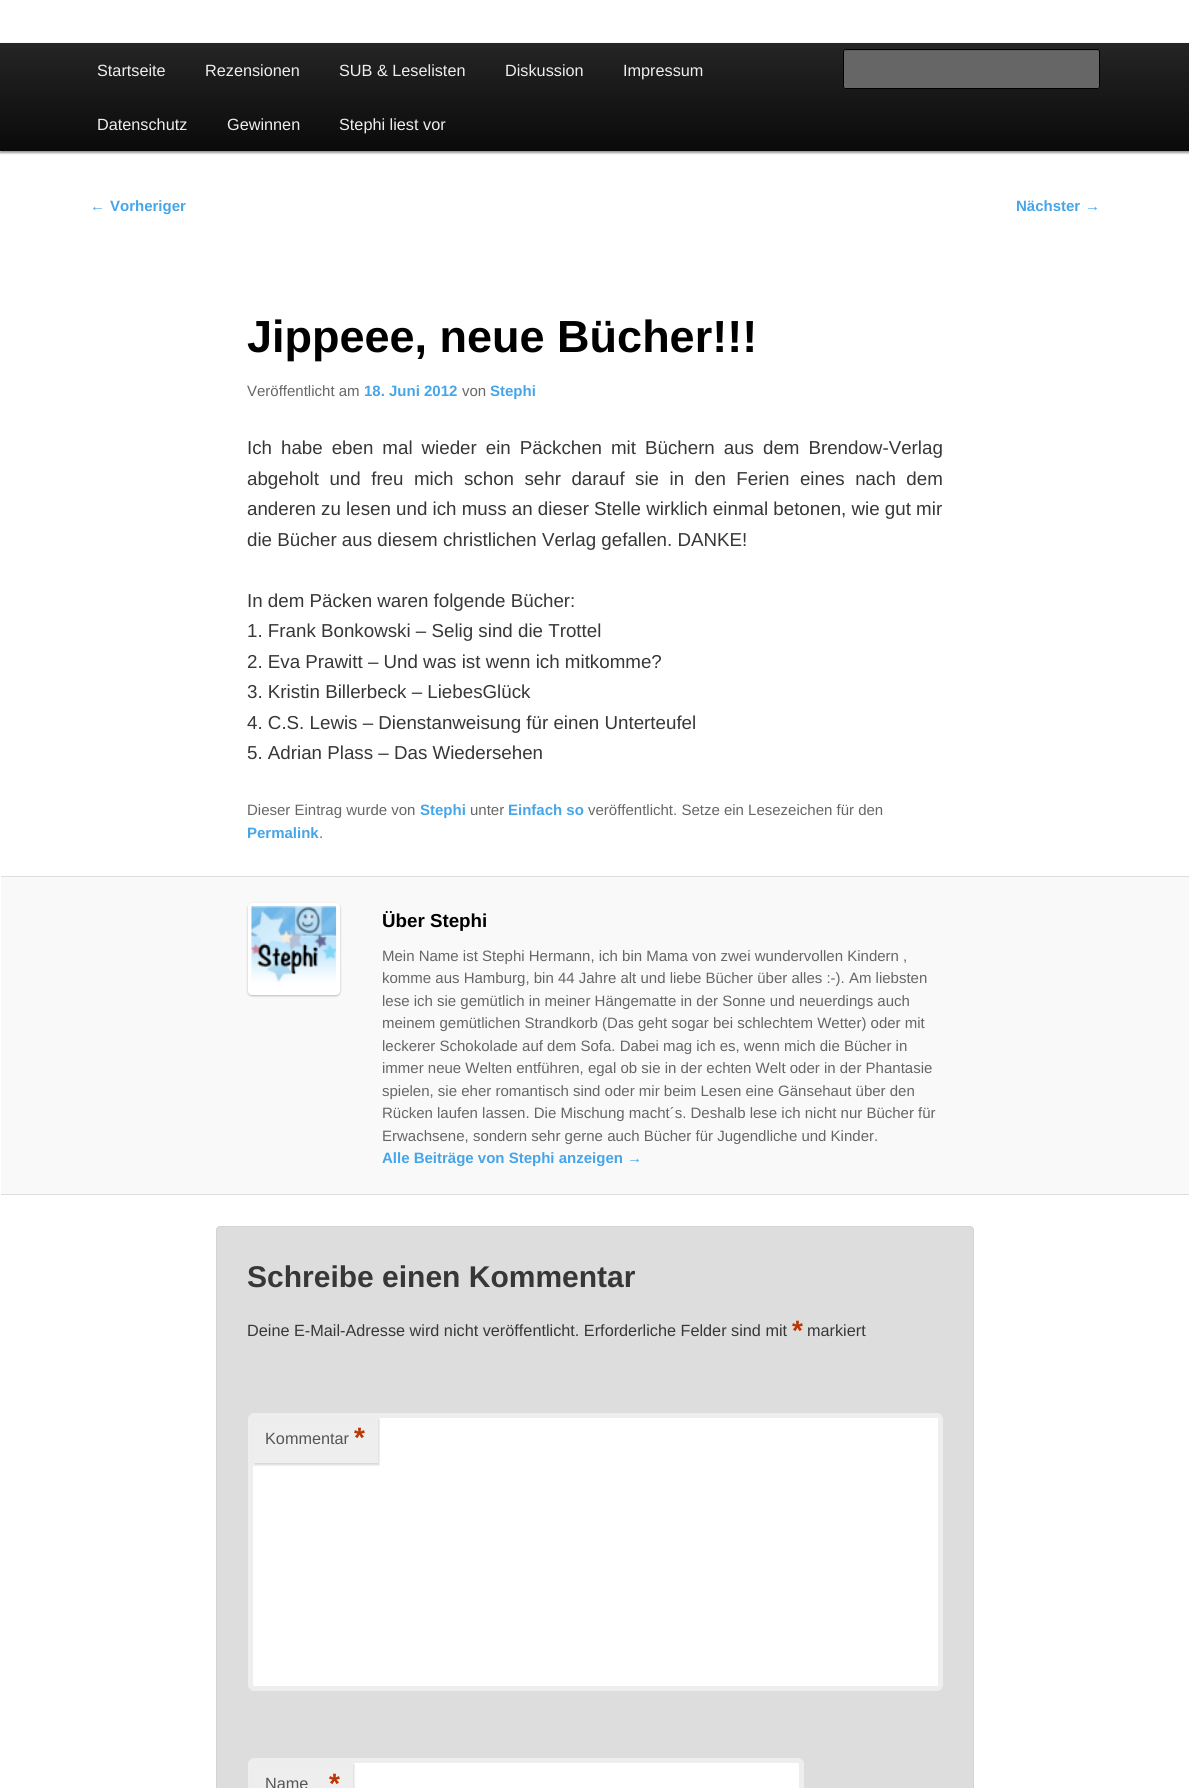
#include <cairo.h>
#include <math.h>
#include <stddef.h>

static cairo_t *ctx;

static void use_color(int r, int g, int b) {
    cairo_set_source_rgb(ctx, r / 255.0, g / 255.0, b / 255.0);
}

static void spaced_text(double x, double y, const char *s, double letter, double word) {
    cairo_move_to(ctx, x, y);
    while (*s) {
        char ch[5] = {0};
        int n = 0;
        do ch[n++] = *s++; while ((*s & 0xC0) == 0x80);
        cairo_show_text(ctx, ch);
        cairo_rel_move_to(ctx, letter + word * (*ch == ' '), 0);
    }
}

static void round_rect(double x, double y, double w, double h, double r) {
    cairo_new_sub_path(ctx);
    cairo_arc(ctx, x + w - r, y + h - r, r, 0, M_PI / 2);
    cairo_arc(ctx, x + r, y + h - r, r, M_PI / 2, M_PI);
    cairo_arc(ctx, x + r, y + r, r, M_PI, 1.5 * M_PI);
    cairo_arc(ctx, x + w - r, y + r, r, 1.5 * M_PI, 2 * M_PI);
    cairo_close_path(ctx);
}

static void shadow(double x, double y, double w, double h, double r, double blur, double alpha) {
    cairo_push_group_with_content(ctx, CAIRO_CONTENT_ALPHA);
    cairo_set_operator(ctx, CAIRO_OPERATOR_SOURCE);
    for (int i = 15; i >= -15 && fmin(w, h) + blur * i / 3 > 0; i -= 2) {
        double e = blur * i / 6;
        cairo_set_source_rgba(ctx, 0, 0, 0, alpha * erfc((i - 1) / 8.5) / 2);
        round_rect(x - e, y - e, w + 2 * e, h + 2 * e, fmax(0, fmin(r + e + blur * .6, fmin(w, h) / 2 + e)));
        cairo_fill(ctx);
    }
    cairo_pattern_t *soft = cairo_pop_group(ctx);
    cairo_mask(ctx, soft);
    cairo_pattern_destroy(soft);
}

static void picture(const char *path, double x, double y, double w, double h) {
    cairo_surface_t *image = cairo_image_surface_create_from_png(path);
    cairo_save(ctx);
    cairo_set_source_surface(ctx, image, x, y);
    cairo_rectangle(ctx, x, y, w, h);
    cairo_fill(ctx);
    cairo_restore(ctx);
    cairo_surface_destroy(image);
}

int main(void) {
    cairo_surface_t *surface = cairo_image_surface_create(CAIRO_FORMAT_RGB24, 1189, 1788);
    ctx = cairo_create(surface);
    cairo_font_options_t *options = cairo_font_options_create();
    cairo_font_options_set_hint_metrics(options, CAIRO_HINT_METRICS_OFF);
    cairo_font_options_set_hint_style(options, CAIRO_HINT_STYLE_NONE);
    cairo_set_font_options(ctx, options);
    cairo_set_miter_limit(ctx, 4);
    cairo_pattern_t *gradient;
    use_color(255, 255, 255);
    cairo_paint(ctx);
    use_color(0, 0, 0);
    shadow(0, 44, 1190, 109, 0, 1, 0.4);
    gradient = cairo_pattern_create_linear(595, 42, 595, 151);
    cairo_pattern_add_color_stop_rgba(gradient, 0, 0.145, 0.145, 0.145, 1);
    cairo_pattern_add_color_stop_rgba(gradient, 1, 0.039, 0.039, 0.039, 1);
    cairo_set_source(ctx, gradient);
    cairo_pattern_destroy(gradient);
    cairo_rectangle(ctx, 0, 43, 1189, 108);
    cairo_fill(ctx);
    cairo_select_font_face(ctx, "Liberation Sans", CAIRO_FONT_SLANT_NORMAL, CAIRO_FONT_WEIGHT_NORMAL);
    cairo_set_font_size(ctx, 16.25);
    use_color(238, 238, 238);
    cairo_move_to(ctx, 97, 76);
    cairo_show_text(ctx, "Startseite");
    cairo_move_to(ctx, 205, 76);
    cairo_show_text(ctx, "Rezensionen");
    cairo_move_to(ctx, 339, 76);
    cairo_show_text(ctx, "SUB & Leselisten");
    cairo_move_to(ctx, 505, 76);
    cairo_show_text(ctx, "Diskussion");
    cairo_move_to(ctx, 623, 76);
    cairo_show_text(ctx, "Impressum");
    cairo_move_to(ctx, 97, 130);
    cairo_show_text(ctx, "Datenschutz");
    cairo_move_to(ctx, 227, 130);
    cairo_show_text(ctx, "Gewinnen");
    cairo_move_to(ctx, 339, 130);
    cairo_show_text(ctx, "Stephi liest vor");
    use_color(102, 102, 102);
    round_rect(843, 49, 257, 40, 2.5);
    cairo_fill(ctx);
    use_color(92, 92, 92);
    cairo_new_path(ctx);
    cairo_move_to(ctx, 845, 51);
    cairo_line_to(ctx, 1098, 51);
    cairo_line_to(ctx, 1099, 52);
    cairo_curve_to(ctx, 1099, 51, 1099, 50, 1098, 50);
    cairo_line_to(ctx, 844, 50);
    cairo_line_to(ctx, 844, 52);
    cairo_close_path(ctx);
    cairo_fill(ctx);
    round_rect(843.5, 49.5, 256, 39, 2);
    use_color(0, 0, 0);
    cairo_set_line_width(ctx, 1);
    cairo_stroke(ctx);
    cairo_set_font_size(ctx, 15);
    use_color(70, 165, 233);
    cairo_move_to(ctx, 90, 211);
    cairo_show_text(ctx, "←");
    cairo_select_font_face(ctx, "Liberation Sans", CAIRO_FONT_SLANT_NORMAL, CAIRO_FONT_WEIGHT_BOLD);
    cairo_move_to(ctx, 110, 211);
    cairo_show_text(ctx, "Vorheriger");
    cairo_move_to(ctx, 1016, 211);
    cairo_show_text(ctx, "Nächster");
    cairo_select_font_face(ctx, "Liberation Sans", CAIRO_FONT_SLANT_NORMAL, CAIRO_FONT_WEIGHT_NORMAL);
    cairo_move_to(ctx, 1085, 211);
    cairo_show_text(ctx, "→");
    cairo_select_font_face(ctx, "Liberation Sans", CAIRO_FONT_SLANT_NORMAL, CAIRO_FONT_WEIGHT_BOLD);
    cairo_set_font_size(ctx, 45);
    use_color(0, 0, 0);
    cairo_move_to(ctx, 247, 352);
    cairo_show_text(ctx, "Jippeee, neue Bücher!!!");
    cairo_select_font_face(ctx, "Liberation Sans", CAIRO_FONT_SLANT_NORMAL, CAIRO_FONT_WEIGHT_NORMAL);
    cairo_set_font_size(ctx, 15);
    use_color(102, 102, 102);
    cairo_move_to(ctx, 247, 396);
    cairo_show_text(ctx, "Veröffentlicht am");
    cairo_select_font_face(ctx, "Liberation Sans", CAIRO_FONT_SLANT_NORMAL, CAIRO_FONT_WEIGHT_BOLD);
    use_color(70, 165, 233);
    cairo_move_to(ctx, 364, 396);
    cairo_show_text(ctx, "18. Juni 2012");
    cairo_select_font_face(ctx, "Liberation Sans", CAIRO_FONT_SLANT_NORMAL, CAIRO_FONT_WEIGHT_NORMAL);
    use_color(102, 102, 102);
    cairo_move_to(ctx, 462, 396);
    cairo_show_text(ctx, "von");
    cairo_select_font_face(ctx, "Liberation Sans", CAIRO_FONT_SLANT_NORMAL, CAIRO_FONT_WEIGHT_BOLD);
    use_color(70, 165, 233);
    cairo_move_to(ctx, 490, 396);
    cairo_show_text(ctx, "Stephi");
    cairo_select_font_face(ctx, "Liberation Sans", CAIRO_FONT_SLANT_NORMAL, CAIRO_FONT_WEIGHT_NORMAL);
    cairo_set_font_size(ctx, 18.75);
    use_color(55, 55, 55);
    spaced_text(247, 454, "Ich habe eben mal wieder ein Päckchen mit Büchern aus dem Brendow-Verlag", 0, 3.75);
    spaced_text(247, 485, "abgeholt und freu mich schon sehr darauf sie in den Ferien eines nach dem", 0, 5.25);
    cairo_move_to(ctx, 247, 515);
    cairo_show_text(ctx, "anderen zu lesen und ich muss an dieser Stelle wirklich einmal betonen, wie gut mir");
    cairo_move_to(ctx, 247, 546);
    cairo_show_text(ctx, "die Bücher aus diesem christlichen Verlag gefallen. DANKE!");
    cairo_move_to(ctx, 247, 607);
    cairo_show_text(ctx, "In dem Päcken waren folgende Bücher:");
    cairo_move_to(ctx, 247, 637);
    cairo_show_text(ctx, "1. Frank Bonkowski – Selig sind die Trottel");
    cairo_move_to(ctx, 247, 668);
    cairo_show_text(ctx, "2. Eva Prawitt – Und was ist wenn ich mitkomme?");
    cairo_move_to(ctx, 247, 698);
    cairo_show_text(ctx, "3. Kristin Billerbeck – LiebesGlück");
    cairo_move_to(ctx, 247, 729);
    cairo_show_text(ctx, "4. C.S. Lewis – Dienstanweisung für einen Unterteufel");
    cairo_move_to(ctx, 247, 759);
    cairo_show_text(ctx, "5. Adrian Plass – Das Wiedersehen");
    cairo_set_font_size(ctx, 15);
    use_color(102, 102, 102);
    cairo_move_to(ctx, 247, 815);
    cairo_show_text(ctx, "Dieser Eintrag wurde von");
    cairo_select_font_face(ctx, "Liberation Sans", CAIRO_FONT_SLANT_NORMAL, CAIRO_FONT_WEIGHT_BOLD);
    use_color(70, 165, 233);
    cairo_move_to(ctx, 420, 815);
    cairo_show_text(ctx, "Stephi");
    cairo_select_font_face(ctx, "Liberation Sans", CAIRO_FONT_SLANT_NORMAL, CAIRO_FONT_WEIGHT_NORMAL);
    use_color(102, 102, 102);
    cairo_move_to(ctx, 470, 815);
    cairo_show_text(ctx, "unter");
    cairo_select_font_face(ctx, "Liberation Sans", CAIRO_FONT_SLANT_NORMAL, CAIRO_FONT_WEIGHT_BOLD);
    use_color(70, 165, 233);
    cairo_move_to(ctx, 508, 815);
    cairo_show_text(ctx, "Einfach so");
    cairo_select_font_face(ctx, "Liberation Sans", CAIRO_FONT_SLANT_NORMAL, CAIRO_FONT_WEIGHT_NORMAL);
    use_color(102, 102, 102);
    cairo_move_to(ctx, 588, 815);
    cairo_show_text(ctx, "veröffentlicht. Setze ein Lesezeichen für den");
    cairo_select_font_face(ctx, "Liberation Sans", CAIRO_FONT_SLANT_NORMAL, CAIRO_FONT_WEIGHT_BOLD);
    use_color(70, 165, 233);
    cairo_move_to(ctx, 247, 838);
    cairo_show_text(ctx, "Permalink");
    cairo_select_font_face(ctx, "Liberation Sans", CAIRO_FONT_SLANT_NORMAL, CAIRO_FONT_WEIGHT_NORMAL);
    use_color(102, 102, 102);
    cairo_move_to(ctx, 319, 838);
    cairo_show_text(ctx, ".");
    use_color(249, 249, 249);
    cairo_rectangle(ctx, 1, 877, 1188, 317);
    cairo_fill(ctx);
    use_color(221, 221, 221);
    cairo_rectangle(ctx, 1, 876, 1188, 1);
    cairo_fill(ctx);
    cairo_rectangle(ctx, 1, 1194, 1188, 1);
    cairo_fill(ctx);
    use_color(187, 187, 187);
    shadow(248, 904, 92, 92, 4, 1, 1);
    use_color(255, 255, 255);
    round_rect(248, 903, 92, 92, 4);
    cairo_fill(ctx);
    picture("img1.png", 251, 906, 86, 76);
    cairo_select_font_face(ctx, "Liberation Sans", CAIRO_FONT_SLANT_NORMAL, CAIRO_FONT_WEIGHT_BOLD);
    cairo_set_font_size(ctx, 18.75);
    use_color(0, 0, 0);
    cairo_move_to(ctx, 382, 927);
    cairo_show_text(ctx, "Über Stephi");
    cairo_select_font_face(ctx, "Liberation Sans", CAIRO_FONT_SLANT_NORMAL, CAIRO_FONT_WEIGHT_NORMAL);
    cairo_set_font_size(ctx, 15);
    use_color(102, 102, 102);
    cairo_move_to(ctx, 382, 961);
    cairo_show_text(ctx, "Mein Name ist Stephi Hermann, ich bin Mama von zwei wundervollen Kindern ,");
    cairo_move_to(ctx, 382, 983);
    cairo_show_text(ctx, "komme aus Hamburg, bin 44 Jahre alt und liebe Bücher über alles :-). Am liebsten");
    cairo_move_to(ctx, 382, 1006);
    cairo_show_text(ctx, "lese ich sie gemütlich in meiner Hängematte in der Sonne und neuerdings auch");
    cairo_move_to(ctx, 382, 1028);
    cairo_show_text(ctx, "meinem gemütlichen Strandkorb (Das geht sogar bei schlechtem Wetter) oder mit");
    cairo_move_to(ctx, 382, 1051);
    cairo_show_text(ctx, "leckerer Schokolade auf dem Sofa. Dabei mag ich es, wenn mich die Bücher in");
    cairo_move_to(ctx, 382, 1073);
    cairo_show_text(ctx, "immer neue Welten entführen, egal ob sie in der echten Welt oder in der Phantasie");
    cairo_move_to(ctx, 382, 1096);
    cairo_show_text(ctx, "spielen, sie eher romantisch sind oder mir beim Lesen eine Gänsehaut über den");
    cairo_move_to(ctx, 382, 1118);
    cairo_show_text(ctx, "Rücken laufen lassen. Die Mischung macht´s. Deshalb lese ich nicht nur Bücher für");
    cairo_move_to(ctx, 382, 1141);
    cairo_show_text(ctx, "Erwachsene, sondern sehr gerne auch Bücher für Jugendliche und Kinder.");
    cairo_select_font_face(ctx, "Liberation Sans", CAIRO_FONT_SLANT_NORMAL, CAIRO_FONT_WEIGHT_BOLD);
    use_color(70, 165, 233);
    cairo_move_to(ctx, 382, 1163);
    cairo_show_text(ctx, "Alle Beiträge von Stephi anzeigen →");
    use_color(221, 221, 221);
    round_rect(216.5, 1226.5, 757, 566, 3.5);
    cairo_fill_preserve(ctx);
    use_color(211, 211, 211);
    cairo_stroke(ctx);
    cairo_set_font_size(ctx, 30);
    use_color(55, 55, 55);
    cairo_move_to(ctx, 247, 1287);
    cairo_show_text(ctx, "Schreibe einen Kommentar");
    cairo_select_font_face(ctx, "Liberation Sans", CAIRO_FONT_SLANT_NORMAL, CAIRO_FONT_WEIGHT_NORMAL);
    cairo_set_font_size(ctx, 16.25);
    cairo_move_to(ctx, 247, 1336);
    cairo_show_text(ctx, "Deine E-Mail-Adresse wird nicht veröffentlicht. Erforderliche Felder sind mit");
    cairo_select_font_face(ctx, "Liberation Sans", CAIRO_FONT_SLANT_NORMAL, CAIRO_FONT_WEIGHT_BOLD);
    cairo_set_font_size(ctx, 28);
    use_color(189, 53, 0);
    cairo_move_to(ctx, 792, 1340);
    cairo_show_text(ctx, "*");
    cairo_select_font_face(ctx, "Liberation Sans", CAIRO_FONT_SLANT_NORMAL, CAIRO_FONT_WEIGHT_NORMAL);
    cairo_set_font_size(ctx, 16.25);
    use_color(55, 55, 55);
    cairo_move_to(ctx, 807, 1336);
    cairo_show_text(ctx, "markiert");
    use_color(255, 255, 255);
    round_rect(250.5, 1415.5, 690, 273, 3.5);
    cairo_fill_preserve(ctx);
    use_color(238, 238, 238);
    cairo_set_line_width(ctx, 5);
    cairo_stroke(ctx);
    use_color(204, 204, 204);
    shadow(254, 1419, 125, 46, 0, 1, 0.8);
    use_color(238, 238, 238);
    cairo_rectangle(ctx, 253, 1418, 125, 45);
    cairo_fill(ctx);
    use_color(85, 85, 85);
    cairo_move_to(ctx, 265, 1444);
    cairo_show_text(ctx, "Kommentar");
    cairo_select_font_face(ctx, "Liberation Sans", CAIRO_FONT_SLANT_NORMAL, CAIRO_FONT_WEIGHT_BOLD);
    cairo_set_font_size(ctx, 28);
    use_color(189, 53, 0);
    cairo_move_to(ctx, 354, 1447);
    cairo_show_text(ctx, "*");
    use_color(255, 255, 255);
    round_rect(250.5, 1760.5, 551, 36, 3.5);
    cairo_fill_preserve(ctx);
    use_color(238, 238, 238);
    cairo_stroke(ctx);
    use_color(204, 204, 204);
    shadow(254, 1764, 100, 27, 0, 1, 0.8);
    use_color(238, 238, 238);
    cairo_rectangle(ctx, 253, 1763, 100, 25);
    cairo_fill(ctx);
    cairo_select_font_face(ctx, "Liberation Sans", CAIRO_FONT_SLANT_NORMAL, CAIRO_FONT_WEIGHT_NORMAL);
    cairo_set_font_size(ctx, 16.25);
    use_color(85, 85, 85);
    cairo_move_to(ctx, 265, 1789);
    cairo_show_text(ctx, "Name");
    cairo_select_font_face(ctx, "Liberation Sans", CAIRO_FONT_SLANT_NORMAL, CAIRO_FONT_WEIGHT_BOLD);
    cairo_set_font_size(ctx, 28);
    use_color(189, 53, 0);
    cairo_move_to(ctx, 329, 1793);
    cairo_show_text(ctx, "*");
    cairo_surface_write_to_png(surface, "result.png");
    cairo_font_options_destroy(options);
    cairo_destroy(ctx);
    cairo_surface_destroy(surface);
    return 0;
}
